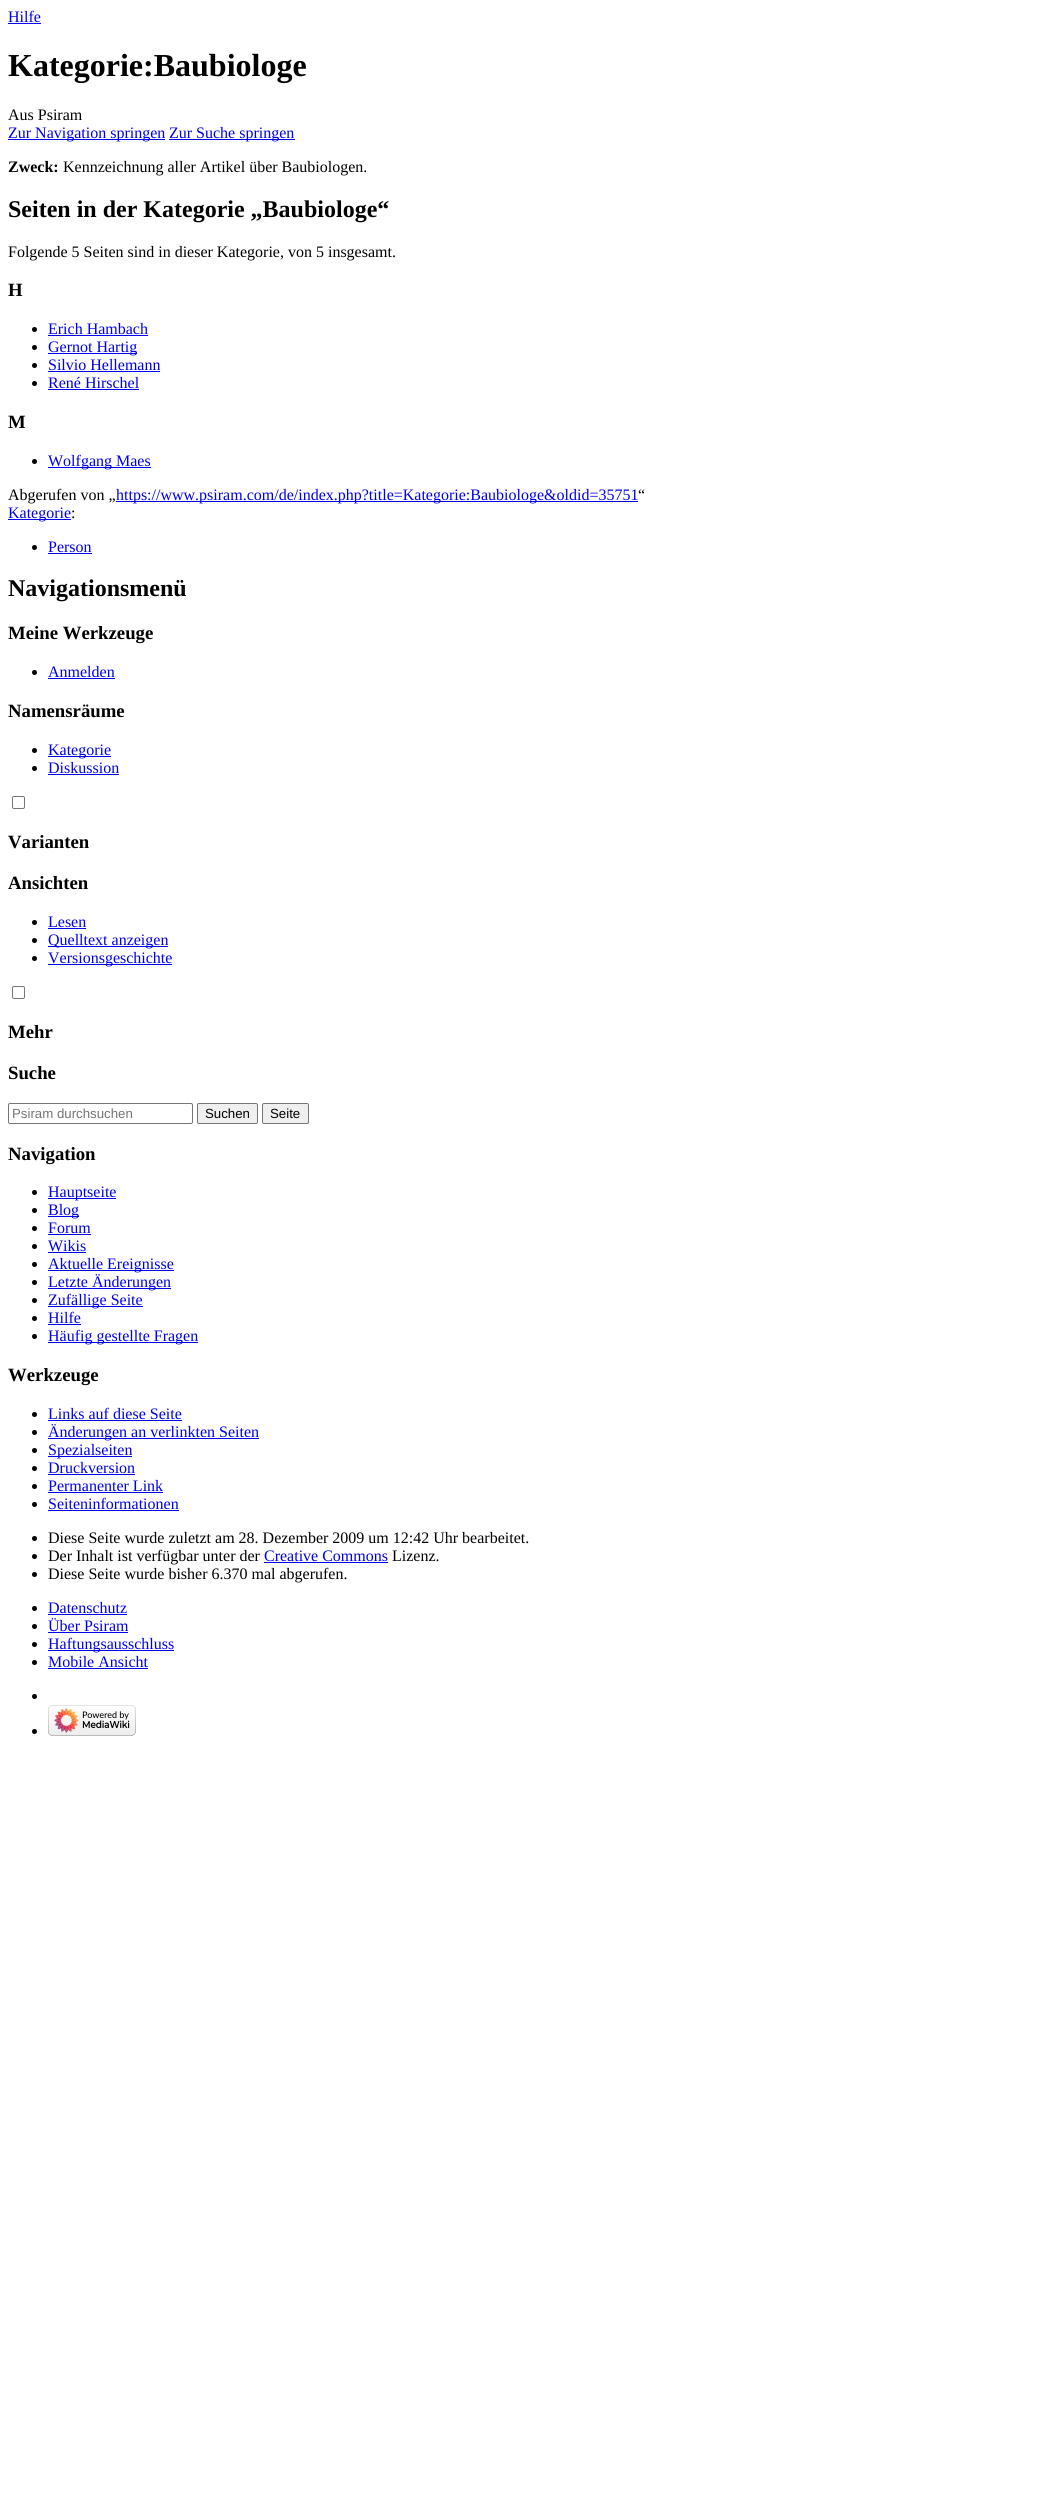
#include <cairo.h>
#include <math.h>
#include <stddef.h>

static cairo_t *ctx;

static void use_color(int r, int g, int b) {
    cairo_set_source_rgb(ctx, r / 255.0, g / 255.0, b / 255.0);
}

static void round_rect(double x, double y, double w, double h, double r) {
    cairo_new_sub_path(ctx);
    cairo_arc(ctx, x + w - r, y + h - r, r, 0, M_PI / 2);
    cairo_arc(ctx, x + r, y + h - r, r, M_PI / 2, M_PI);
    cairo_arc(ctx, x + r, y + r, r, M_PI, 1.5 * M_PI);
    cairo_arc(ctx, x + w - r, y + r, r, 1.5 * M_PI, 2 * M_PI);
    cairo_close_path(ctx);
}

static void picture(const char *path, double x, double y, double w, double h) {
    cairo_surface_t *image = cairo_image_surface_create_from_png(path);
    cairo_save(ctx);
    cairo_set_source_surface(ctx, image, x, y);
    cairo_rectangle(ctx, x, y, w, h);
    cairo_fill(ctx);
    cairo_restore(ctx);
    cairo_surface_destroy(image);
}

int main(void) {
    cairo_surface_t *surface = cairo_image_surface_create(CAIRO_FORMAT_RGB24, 1043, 2502);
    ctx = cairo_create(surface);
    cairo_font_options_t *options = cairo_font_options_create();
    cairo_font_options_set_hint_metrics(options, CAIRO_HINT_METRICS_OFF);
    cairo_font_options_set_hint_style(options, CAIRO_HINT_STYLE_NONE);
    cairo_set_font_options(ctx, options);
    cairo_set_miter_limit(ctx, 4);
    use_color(255, 255, 255);
    cairo_paint(ctx);
    cairo_select_font_face(ctx, "Liberation Serif", CAIRO_FONT_SLANT_NORMAL, CAIRO_FONT_WEIGHT_NORMAL);
    cairo_set_font_size(ctx, 16);
    use_color(0, 0, 238);
    cairo_move_to(ctx, 8, 22);
    cairo_show_text(ctx, "Hilfe");
    cairo_rectangle(ctx, 8, 23, 33, 1);
    cairo_fill(ctx);
    cairo_select_font_face(ctx, "Liberation Serif", CAIRO_FONT_SLANT_NORMAL, CAIRO_FONT_WEIGHT_BOLD);
    cairo_set_font_size(ctx, 32);
    use_color(0, 0, 0);
    cairo_move_to(ctx, 8, 76);
    cairo_show_text(ctx, "Kategorie:Baubiologe");
    cairo_select_font_face(ctx, "Liberation Serif", CAIRO_FONT_SLANT_NORMAL, CAIRO_FONT_WEIGHT_NORMAL);
    cairo_set_font_size(ctx, 16);
    cairo_move_to(ctx, 8, 120);
    cairo_show_text(ctx, "Aus Psiram");
    use_color(0, 0, 238);
    cairo_rectangle(ctx, 8, 139, 157, 1);
    cairo_fill(ctx);
    cairo_move_to(ctx, 8, 138);
    cairo_show_text(ctx, "Zur Navigation springen");
    cairo_rectangle(ctx, 169, 139, 126, 1);
    cairo_fill(ctx);
    cairo_move_to(ctx, 169, 138);
    cairo_show_text(ctx, "Zur Suche springen");
    cairo_select_font_face(ctx, "Liberation Serif", CAIRO_FONT_SLANT_NORMAL, CAIRO_FONT_WEIGHT_BOLD);
    use_color(0, 0, 0);
    cairo_move_to(ctx, 8, 172);
    cairo_show_text(ctx, "Zweck:");
    cairo_select_font_face(ctx, "Liberation Serif", CAIRO_FONT_SLANT_NORMAL, CAIRO_FONT_WEIGHT_NORMAL);
    cairo_move_to(ctx, 63, 172);
    cairo_show_text(ctx, "Kennzeichnung aller Artikel über Baubiologen.");
    cairo_select_font_face(ctx, "Liberation Serif", CAIRO_FONT_SLANT_NORMAL, CAIRO_FONT_WEIGHT_BOLD);
    cairo_set_font_size(ctx, 24);
    cairo_move_to(ctx, 8, 217);
    cairo_show_text(ctx, "Seiten in der Kategorie „Baubiologe“");
    cairo_select_font_face(ctx, "Liberation Serif", CAIRO_FONT_SLANT_NORMAL, CAIRO_FONT_WEIGHT_NORMAL);
    cairo_set_font_size(ctx, 16);
    cairo_move_to(ctx, 8, 257);
    cairo_show_text(ctx, "Folgende 5 Seiten sind in dieser Kategorie, von 5 insgesamt.");
    cairo_select_font_face(ctx, "Liberation Serif", CAIRO_FONT_SLANT_NORMAL, CAIRO_FONT_WEIGHT_BOLD);
    cairo_set_font_size(ctx, 18.75);
    cairo_move_to(ctx, 8, 296);
    cairo_show_text(ctx, "H");
    cairo_new_path(ctx);
    cairo_arc(ctx, 34.5, 329.5, 2.5, 0, 2 * M_PI);
    cairo_fill(ctx);
    cairo_select_font_face(ctx, "Liberation Serif", CAIRO_FONT_SLANT_NORMAL, CAIRO_FONT_WEIGHT_NORMAL);
    cairo_set_font_size(ctx, 16);
    use_color(0, 0, 238);
    cairo_move_to(ctx, 48, 334);
    cairo_show_text(ctx, "Erich Hambach");
    cairo_rectangle(ctx, 48, 335, 100, 1);
    cairo_fill(ctx);
    use_color(0, 0, 0);
    cairo_arc(ctx, 34.5, 347.5, 2.5, 0, 2 * M_PI);
    cairo_fill(ctx);
    use_color(0, 0, 238);
    cairo_rectangle(ctx, 48, 353, 89, 1);
    cairo_fill(ctx);
    cairo_move_to(ctx, 48, 352);
    cairo_show_text(ctx, "Gernot Hartig");
    use_color(0, 0, 0);
    cairo_new_path(ctx);
    cairo_arc(ctx, 34.5, 365.5, 2.5, 0, 2 * M_PI);
    cairo_fill(ctx);
    use_color(0, 0, 238);
    cairo_move_to(ctx, 48, 370);
    cairo_show_text(ctx, "Silvio Hellemann");
    cairo_rectangle(ctx, 48, 371, 112, 1);
    cairo_fill(ctx);
    use_color(0, 0, 0);
    cairo_arc(ctx, 34.5, 383.5, 2.5, 0, 2 * M_PI);
    cairo_fill(ctx);
    use_color(0, 0, 238);
    cairo_move_to(ctx, 48, 388);
    cairo_show_text(ctx, "René Hirschel");
    cairo_rectangle(ctx, 48, 389, 91, 1);
    cairo_fill(ctx);
    cairo_select_font_face(ctx, "Liberation Serif", CAIRO_FONT_SLANT_NORMAL, CAIRO_FONT_WEIGHT_BOLD);
    cairo_set_font_size(ctx, 18.75);
    use_color(0, 0, 0);
    cairo_move_to(ctx, 8, 428);
    cairo_show_text(ctx, "M");
    cairo_new_path(ctx);
    cairo_arc(ctx, 34.5, 461.5, 2.5, 0, 2 * M_PI);
    cairo_fill(ctx);
    use_color(0, 0, 238);
    cairo_rectangle(ctx, 48, 467, 103, 1);
    cairo_fill(ctx);
    cairo_select_font_face(ctx, "Liberation Serif", CAIRO_FONT_SLANT_NORMAL, CAIRO_FONT_WEIGHT_NORMAL);
    cairo_set_font_size(ctx, 16);
    cairo_move_to(ctx, 48, 466);
    cairo_show_text(ctx, "Wolfgang Maes");
    use_color(0, 0, 0);
    cairo_move_to(ctx, 8, 500);
    cairo_show_text(ctx, "Abgerufen von „");
    use_color(0, 0, 238);
    cairo_rectangle(ctx, 116, 501, 522, 1);
    cairo_fill(ctx);
    cairo_move_to(ctx, 116, 500);
    cairo_show_text(ctx, "https://www.psiram.com/de/index.php?title=Kategorie:Baubiologe&oldid=35751");
    use_color(0, 0, 0);
    cairo_move_to(ctx, 638, 500);
    cairo_show_text(ctx, "“");
    use_color(0, 0, 238);
    cairo_rectangle(ctx, 8, 519, 63, 1);
    cairo_fill(ctx);
    cairo_move_to(ctx, 8, 518);
    cairo_show_text(ctx, "Kategorie");
    use_color(0, 0, 0);
    cairo_move_to(ctx, 71, 518);
    cairo_show_text(ctx, ":");
    cairo_new_path(ctx);
    cairo_arc(ctx, 34.5, 547.5, 2.5, 0, 2 * M_PI);
    cairo_fill(ctx);
    use_color(0, 0, 238);
    cairo_move_to(ctx, 48, 552);
    cairo_show_text(ctx, "Person");
    cairo_rectangle(ctx, 48, 553, 44, 1);
    cairo_fill(ctx);
    cairo_select_font_face(ctx, "Liberation Serif", CAIRO_FONT_SLANT_NORMAL, CAIRO_FONT_WEIGHT_BOLD);
    cairo_set_font_size(ctx, 24);
    use_color(0, 0, 0);
    cairo_move_to(ctx, 8, 596);
    cairo_show_text(ctx, "Navigationsmenü");
    cairo_set_font_size(ctx, 18.75);
    cairo_move_to(ctx, 8, 639);
    cairo_show_text(ctx, "Meine Werkzeuge");
    cairo_new_path(ctx);
    cairo_arc(ctx, 34.5, 672.5, 2.5, 0, 2 * M_PI);
    cairo_fill(ctx);
    cairo_select_font_face(ctx, "Liberation Serif", CAIRO_FONT_SLANT_NORMAL, CAIRO_FONT_WEIGHT_NORMAL);
    cairo_set_font_size(ctx, 16);
    use_color(0, 0, 238);
    cairo_move_to(ctx, 48, 677);
    cairo_show_text(ctx, "Anmelden");
    cairo_rectangle(ctx, 48, 678, 67, 1);
    cairo_fill(ctx);
    cairo_select_font_face(ctx, "Liberation Serif", CAIRO_FONT_SLANT_NORMAL, CAIRO_FONT_WEIGHT_BOLD);
    cairo_set_font_size(ctx, 18.75);
    use_color(0, 0, 0);
    cairo_move_to(ctx, 8, 717);
    cairo_show_text(ctx, "Namensräume");
    cairo_new_path(ctx);
    cairo_arc(ctx, 34.5, 750.5, 2.5, 0, 2 * M_PI);
    cairo_fill(ctx);
    use_color(0, 0, 238);
    cairo_rectangle(ctx, 48, 756, 63, 1);
    cairo_fill(ctx);
    cairo_select_font_face(ctx, "Liberation Serif", CAIRO_FONT_SLANT_NORMAL, CAIRO_FONT_WEIGHT_NORMAL);
    cairo_set_font_size(ctx, 16);
    cairo_move_to(ctx, 48, 755);
    cairo_show_text(ctx, "Kategorie");
    use_color(0, 0, 0);
    cairo_new_path(ctx);
    cairo_arc(ctx, 34.5, 768.5, 2.5, 0, 2 * M_PI);
    cairo_fill(ctx);
    use_color(0, 0, 238);
    cairo_move_to(ctx, 48, 773);
    cairo_show_text(ctx, "Diskussion");
    cairo_rectangle(ctx, 48, 774, 71, 1);
    cairo_fill(ctx);
    round_rect(12.5, 796.5, 12, 12, 1.5);
    use_color(118, 118, 118);
    cairo_set_line_width(ctx, 1);
    cairo_stroke(ctx);
    cairo_select_font_face(ctx, "Liberation Serif", CAIRO_FONT_SLANT_NORMAL, CAIRO_FONT_WEIGHT_BOLD);
    cairo_set_font_size(ctx, 18.75);
    use_color(0, 0, 0);
    cairo_move_to(ctx, 8, 848);
    cairo_show_text(ctx, "Varianten");
    cairo_move_to(ctx, 8, 889);
    cairo_show_text(ctx, "Ansichten");
    cairo_new_path(ctx);
    cairo_arc(ctx, 34.5, 922.5, 2.5, 0, 2 * M_PI);
    cairo_fill(ctx);
    cairo_select_font_face(ctx, "Liberation Serif", CAIRO_FONT_SLANT_NORMAL, CAIRO_FONT_WEIGHT_NORMAL);
    cairo_set_font_size(ctx, 16);
    use_color(0, 0, 238);
    cairo_move_to(ctx, 48, 927);
    cairo_show_text(ctx, "Lesen");
    cairo_rectangle(ctx, 48, 928, 38, 1);
    cairo_fill(ctx);
    use_color(0, 0, 0);
    cairo_arc(ctx, 34.5, 940.5, 2.5, 0, 2 * M_PI);
    cairo_fill(ctx);
    use_color(0, 0, 238);
    cairo_rectangle(ctx, 48, 946, 120, 1);
    cairo_fill(ctx);
    cairo_move_to(ctx, 48, 945);
    cairo_show_text(ctx, "Quelltext anzeigen");
    use_color(0, 0, 0);
    cairo_new_path(ctx);
    cairo_arc(ctx, 34.5, 958.5, 2.5, 0, 2 * M_PI);
    cairo_fill(ctx);
    use_color(0, 0, 238);
    cairo_rectangle(ctx, 48, 964, 124, 1);
    cairo_fill(ctx);
    cairo_move_to(ctx, 48, 963);
    cairo_show_text(ctx, "Versionsgeschichte");
    round_rect(12.5, 986.5, 12, 12, 1.5);
    use_color(118, 118, 118);
    cairo_stroke(ctx);
    cairo_select_font_face(ctx, "Liberation Serif", CAIRO_FONT_SLANT_NORMAL, CAIRO_FONT_WEIGHT_BOLD);
    cairo_set_font_size(ctx, 18.75);
    use_color(0, 0, 0);
    cairo_move_to(ctx, 8, 1038);
    cairo_show_text(ctx, "Mehr");
    cairo_move_to(ctx, 8, 1079);
    cairo_show_text(ctx, "Suche");
    round_rect(8.5, 1103.5, 184, 20, 1.5);
    use_color(118, 118, 118);
    cairo_stroke(ctx);
    cairo_select_font_face(ctx, "Liberation Sans", CAIRO_FONT_SLANT_NORMAL, CAIRO_FONT_WEIGHT_NORMAL);
    cairo_set_font_size(ctx, 13.25);
    use_color(117, 117, 117);
    cairo_move_to(ctx, 12, 1118);
    cairo_show_text(ctx, "Psiram durchsuchen");
    use_color(239, 239, 239);
    round_rect(197.5, 1103.5, 60, 20, 1.5);
    cairo_fill_preserve(ctx);
    use_color(118, 118, 118);
    cairo_stroke(ctx);
    use_color(0, 0, 0);
    cairo_move_to(ctx, 205, 1118);
    cairo_show_text(ctx, "Suchen");
    use_color(239, 239, 239);
    round_rect(262.5, 1103.5, 46, 20, 1.5);
    cairo_fill_preserve(ctx);
    use_color(118, 118, 118);
    cairo_stroke(ctx);
    use_color(0, 0, 0);
    cairo_move_to(ctx, 270, 1118);
    cairo_show_text(ctx, "Seite");
    cairo_select_font_face(ctx, "Liberation Serif", CAIRO_FONT_SLANT_NORMAL, CAIRO_FONT_WEIGHT_BOLD);
    cairo_set_font_size(ctx, 18.75);
    cairo_move_to(ctx, 8, 1160);
    cairo_show_text(ctx, "Navigation");
    cairo_new_path(ctx);
    cairo_arc(ctx, 34.5, 1192.5, 2.5, 0, 2 * M_PI);
    cairo_fill(ctx);
    use_color(0, 0, 238);
    cairo_rectangle(ctx, 48, 1198, 68, 1);
    cairo_fill(ctx);
    cairo_select_font_face(ctx, "Liberation Serif", CAIRO_FONT_SLANT_NORMAL, CAIRO_FONT_WEIGHT_NORMAL);
    cairo_set_font_size(ctx, 16);
    cairo_move_to(ctx, 48, 1197);
    cairo_show_text(ctx, "Hauptseite");
    use_color(0, 0, 0);
    cairo_new_path(ctx);
    cairo_arc(ctx, 34.5, 1210.5, 2.5, 0, 2 * M_PI);
    cairo_fill(ctx);
    use_color(0, 0, 238);
    cairo_rectangle(ctx, 48, 1216, 31, 1);
    cairo_fill(ctx);
    cairo_move_to(ctx, 48, 1215);
    cairo_show_text(ctx, "Blog");
    use_color(0, 0, 0);
    cairo_new_path(ctx);
    cairo_arc(ctx, 34.5, 1228.5, 2.5, 0, 2 * M_PI);
    cairo_fill(ctx);
    use_color(0, 0, 238);
    cairo_move_to(ctx, 48, 1233);
    cairo_show_text(ctx, "Forum");
    cairo_rectangle(ctx, 48, 1234, 43, 1);
    cairo_fill(ctx);
    use_color(0, 0, 0);
    cairo_arc(ctx, 34.5, 1246.5, 2.5, 0, 2 * M_PI);
    cairo_fill(ctx);
    use_color(0, 0, 238);
    cairo_move_to(ctx, 48, 1251);
    cairo_show_text(ctx, "Wikis");
    cairo_rectangle(ctx, 48, 1252, 38, 1);
    cairo_fill(ctx);
    use_color(0, 0, 0);
    cairo_arc(ctx, 34.5, 1264.5, 2.5, 0, 2 * M_PI);
    cairo_fill(ctx);
    use_color(0, 0, 238);
    cairo_rectangle(ctx, 48, 1270, 126, 1);
    cairo_fill(ctx);
    cairo_move_to(ctx, 48, 1269);
    cairo_show_text(ctx, "Aktuelle Ereignisse");
    use_color(0, 0, 0);
    cairo_new_path(ctx);
    cairo_arc(ctx, 34.5, 1282.5, 2.5, 0, 2 * M_PI);
    cairo_fill(ctx);
    use_color(0, 0, 238);
    cairo_rectangle(ctx, 48, 1288, 123, 1);
    cairo_fill(ctx);
    cairo_move_to(ctx, 48, 1287);
    cairo_show_text(ctx, "Letzte Änderungen");
    use_color(0, 0, 0);
    cairo_new_path(ctx);
    cairo_arc(ctx, 34.5, 1300.5, 2.5, 0, 2 * M_PI);
    cairo_fill(ctx);
    use_color(0, 0, 238);
    cairo_rectangle(ctx, 48, 1306, 95, 1);
    cairo_fill(ctx);
    cairo_move_to(ctx, 48, 1305);
    cairo_show_text(ctx, "Zufällige Seite");
    use_color(0, 0, 0);
    cairo_new_path(ctx);
    cairo_arc(ctx, 34.5, 1318.5, 2.5, 0, 2 * M_PI);
    cairo_fill(ctx);
    use_color(0, 0, 238);
    cairo_move_to(ctx, 48, 1323);
    cairo_show_text(ctx, "Hilfe");
    cairo_rectangle(ctx, 48, 1324, 33, 1);
    cairo_fill(ctx);
    use_color(0, 0, 0);
    cairo_arc(ctx, 34.5, 1336.5, 2.5, 0, 2 * M_PI);
    cairo_fill(ctx);
    use_color(0, 0, 238);
    cairo_rectangle(ctx, 48, 1342, 150, 1);
    cairo_fill(ctx);
    cairo_move_to(ctx, 48, 1341);
    cairo_show_text(ctx, "Häufig gestellte Fragen");
    cairo_select_font_face(ctx, "Liberation Serif", CAIRO_FONT_SLANT_NORMAL, CAIRO_FONT_WEIGHT_BOLD);
    cairo_set_font_size(ctx, 18.75);
    use_color(0, 0, 0);
    cairo_move_to(ctx, 8, 1381);
    cairo_show_text(ctx, "Werkzeuge");
    cairo_new_path(ctx);
    cairo_arc(ctx, 34.5, 1414.5, 2.5, 0, 2 * M_PI);
    cairo_fill(ctx);
    cairo_select_font_face(ctx, "Liberation Serif", CAIRO_FONT_SLANT_NORMAL, CAIRO_FONT_WEIGHT_NORMAL);
    cairo_set_font_size(ctx, 16);
    use_color(0, 0, 238);
    cairo_move_to(ctx, 48, 1419);
    cairo_show_text(ctx, "Links auf diese Seite");
    cairo_rectangle(ctx, 48, 1420, 134, 1);
    cairo_fill(ctx);
    use_color(0, 0, 0);
    cairo_arc(ctx, 34.5, 1432.5, 2.5, 0, 2 * M_PI);
    cairo_fill(ctx);
    use_color(0, 0, 238);
    cairo_rectangle(ctx, 48, 1438, 211, 1);
    cairo_fill(ctx);
    cairo_move_to(ctx, 48, 1437);
    cairo_show_text(ctx, "Änderungen an verlinkten Seiten");
    use_color(0, 0, 0);
    cairo_new_path(ctx);
    cairo_arc(ctx, 34.5, 1450.5, 2.5, 0, 2 * M_PI);
    cairo_fill(ctx);
    use_color(0, 0, 238);
    cairo_rectangle(ctx, 48, 1456, 84, 1);
    cairo_fill(ctx);
    cairo_move_to(ctx, 48, 1455);
    cairo_show_text(ctx, "Spezialseiten");
    use_color(0, 0, 0);
    cairo_new_path(ctx);
    cairo_arc(ctx, 34.5, 1468.5, 2.5, 0, 2 * M_PI);
    cairo_fill(ctx);
    use_color(0, 0, 238);
    cairo_move_to(ctx, 48, 1473);
    cairo_show_text(ctx, "Druckversion");
    cairo_rectangle(ctx, 48, 1474, 87, 1);
    cairo_fill(ctx);
    use_color(0, 0, 0);
    cairo_arc(ctx, 34.5, 1486.5, 2.5, 0, 2 * M_PI);
    cairo_fill(ctx);
    use_color(0, 0, 238);
    cairo_move_to(ctx, 48, 1491);
    cairo_show_text(ctx, "Permanenter Link");
    cairo_rectangle(ctx, 48, 1492, 115, 1);
    cairo_fill(ctx);
    use_color(0, 0, 0);
    cairo_arc(ctx, 34.5, 1504.5, 2.5, 0, 2 * M_PI);
    cairo_fill(ctx);
    use_color(0, 0, 238);
    cairo_move_to(ctx, 48, 1509);
    cairo_show_text(ctx, "Seiteninformationen");
    cairo_rectangle(ctx, 48, 1510, 131, 1);
    cairo_fill(ctx);
    use_color(0, 0, 0);
    cairo_arc(ctx, 34.5, 1538.5, 2.5, 0, 2 * M_PI);
    cairo_fill(ctx);
    cairo_move_to(ctx, 48, 1543);
    cairo_show_text(ctx, "Diese Seite wurde zuletzt am 28. Dezember 2009 um 12:42 Uhr bearbeitet.");
    cairo_new_path(ctx);
    cairo_arc(ctx, 34.5, 1556.5, 2.5, 0, 2 * M_PI);
    cairo_fill(ctx);
    cairo_move_to(ctx, 48, 1561);
    cairo_show_text(ctx, "Der Inhalt ist verfügbar unter der");
    use_color(0, 0, 238);
    cairo_move_to(ctx, 264, 1561);
    cairo_show_text(ctx, "Creative Commons");
    cairo_rectangle(ctx, 264, 1562, 124, 1);
    cairo_fill(ctx);
    use_color(0, 0, 0);
    cairo_move_to(ctx, 392, 1561);
    cairo_show_text(ctx, "Lizenz.");
    cairo_new_path(ctx);
    cairo_arc(ctx, 34.5, 1574.5, 2.5, 0, 2 * M_PI);
    cairo_fill(ctx);
    cairo_move_to(ctx, 48, 1579);
    cairo_show_text(ctx, "Diese Seite wurde bisher 6.370 mal abgerufen.");
    cairo_new_path(ctx);
    cairo_arc(ctx, 34.5, 1608.5, 2.5, 0, 2 * M_PI);
    cairo_fill(ctx);
    use_color(0, 0, 238);
    cairo_move_to(ctx, 48, 1613);
    cairo_show_text(ctx, "Datenschutz");
    cairo_rectangle(ctx, 48, 1614, 79, 1);
    cairo_fill(ctx);
    use_color(0, 0, 0);
    cairo_arc(ctx, 34.5, 1626.5, 2.5, 0, 2 * M_PI);
    cairo_fill(ctx);
    use_color(0, 0, 238);
    cairo_move_to(ctx, 48, 1631);
    cairo_show_text(ctx, "Über Psiram");
    cairo_rectangle(ctx, 48, 1632, 80, 1);
    cairo_fill(ctx);
    use_color(0, 0, 0);
    cairo_arc(ctx, 34.5, 1644.5, 2.5, 0, 2 * M_PI);
    cairo_fill(ctx);
    use_color(0, 0, 238);
    cairo_rectangle(ctx, 48, 1650, 126, 1);
    cairo_fill(ctx);
    cairo_move_to(ctx, 48, 1649);
    cairo_show_text(ctx, "Haftungsausschluss");
    use_color(0, 0, 0);
    cairo_new_path(ctx);
    cairo_arc(ctx, 34.5, 1662.5, 2.5, 0, 2 * M_PI);
    cairo_fill(ctx);
    use_color(0, 0, 238);
    cairo_move_to(ctx, 48, 1667);
    cairo_show_text(ctx, "Mobile Ansicht");
    cairo_rectangle(ctx, 48, 1668, 100, 1);
    cairo_fill(ctx);
    use_color(0, 0, 0);
    cairo_arc(ctx, 34.5, 1696.5, 2.5, 0, 2 * M_PI);
    cairo_fill(ctx);
    cairo_arc(ctx, 34.5, 1731.5, 2.5, 0, 2 * M_PI);
    cairo_fill(ctx);
    picture("img1.png", 48, 1705, 88, 31);
    cairo_surface_write_to_png(surface, "result.png");
    cairo_font_options_destroy(options);
    cairo_destroy(ctx);
    cairo_surface_destroy(surface);
    return 0;
}
